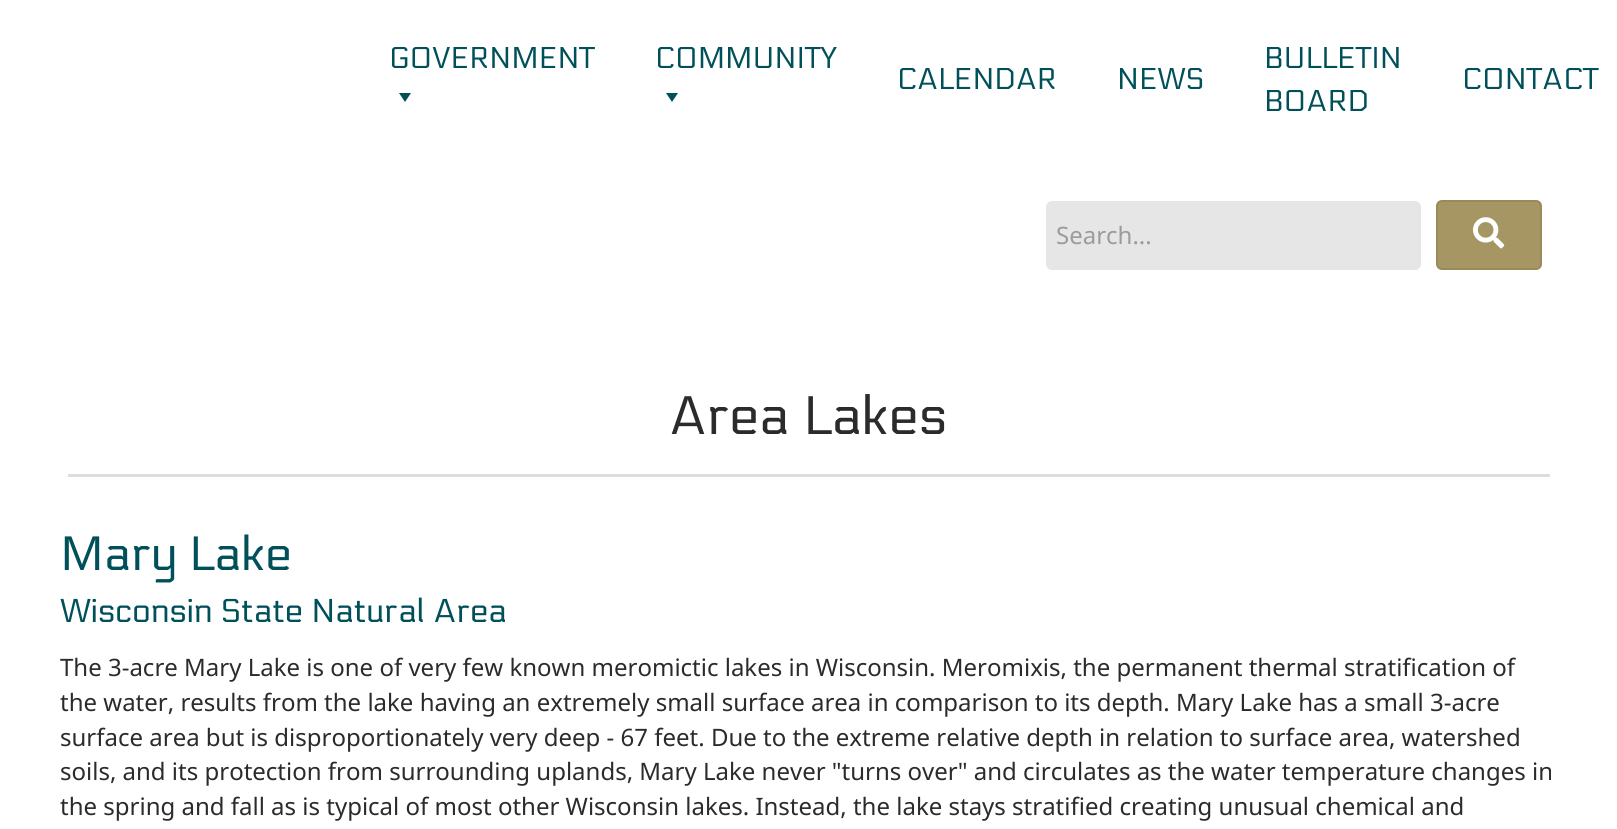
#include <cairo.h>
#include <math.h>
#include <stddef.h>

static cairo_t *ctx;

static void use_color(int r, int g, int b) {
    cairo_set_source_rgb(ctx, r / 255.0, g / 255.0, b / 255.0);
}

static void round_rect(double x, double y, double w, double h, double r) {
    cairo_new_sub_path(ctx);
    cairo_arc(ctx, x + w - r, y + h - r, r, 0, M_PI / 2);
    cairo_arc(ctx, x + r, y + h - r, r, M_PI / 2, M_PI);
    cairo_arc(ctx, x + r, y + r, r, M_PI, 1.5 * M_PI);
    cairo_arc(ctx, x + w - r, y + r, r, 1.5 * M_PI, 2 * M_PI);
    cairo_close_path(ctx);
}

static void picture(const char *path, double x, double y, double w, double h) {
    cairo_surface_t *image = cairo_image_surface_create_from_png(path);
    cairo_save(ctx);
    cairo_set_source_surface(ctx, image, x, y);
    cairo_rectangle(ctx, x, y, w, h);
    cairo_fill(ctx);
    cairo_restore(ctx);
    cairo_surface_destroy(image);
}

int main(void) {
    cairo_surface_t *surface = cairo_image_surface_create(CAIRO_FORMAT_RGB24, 1617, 829);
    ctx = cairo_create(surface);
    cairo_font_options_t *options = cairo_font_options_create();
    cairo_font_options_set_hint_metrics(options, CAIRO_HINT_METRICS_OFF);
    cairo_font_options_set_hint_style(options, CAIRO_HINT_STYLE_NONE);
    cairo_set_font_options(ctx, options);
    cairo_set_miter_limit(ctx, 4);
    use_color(255, 255, 255);
    cairo_paint(ctx);
    cairo_select_font_face(ctx, "Electrolize", CAIRO_FONT_SLANT_NORMAL, CAIRO_FONT_WEIGHT_NORMAL);
    cairo_set_font_size(ctx, 30);
    use_color(0, 80, 90);
    cairo_move_to(ctx, 389, 68);
    cairo_show_text(ctx, "GOVERNMENT");
    cairo_new_path(ctx);
    cairo_move_to(ctx, 411, 93);
    cairo_line_to(ctx, 405, 102);
    cairo_line_to(ctx, 399, 93);
    cairo_close_path(ctx);
    cairo_fill(ctx);
    cairo_move_to(ctx, 655, 68);
    cairo_show_text(ctx, "COMMUNITY");
    cairo_new_path(ctx);
    cairo_move_to(ctx, 678, 93);
    cairo_line_to(ctx, 672, 102);
    cairo_line_to(ctx, 666, 93);
    cairo_close_path(ctx);
    cairo_fill(ctx);
    cairo_move_to(ctx, 897, 89);
    cairo_show_text(ctx, "CALENDAR");
    cairo_move_to(ctx, 1117, 89);
    cairo_show_text(ctx, "NEWS");
    cairo_move_to(ctx, 1264, 68);
    cairo_show_text(ctx, "BULLETIN");
    cairo_move_to(ctx, 1264, 111);
    cairo_show_text(ctx, "BOARD");
    cairo_move_to(ctx, 1462, 89);
    cairo_show_text(ctx, "CONTACT");
    use_color(230, 230, 230);
    round_rect(1046, 201, 375, 69, 6);
    cairo_fill(ctx);
    cairo_select_font_face(ctx, "Noto Sans", CAIRO_FONT_SLANT_NORMAL, CAIRO_FONT_WEIGHT_NORMAL);
    cairo_set_font_size(ctx, 24);
    use_color(155, 155, 155);
    cairo_move_to(ctx, 1056, 244);
    cairo_show_text(ctx, "Search...");
    use_color(165, 150, 100);
    round_rect(1437, 201, 104, 68, 5);
    cairo_fill_preserve(ctx);
    use_color(153, 138, 88);
    cairo_stroke(ctx);
    picture("img1.png", 1473, 217, 32, 32);
    cairo_select_font_face(ctx, "Electrolize", CAIRO_FONT_SLANT_NORMAL, CAIRO_FONT_WEIGHT_NORMAL);
    cairo_set_font_size(ctx, 54);
    use_color(43, 43, 43);
    cairo_move_to(ctx, 669, 434);
    cairo_show_text(ctx, "Area Lakes");
    use_color(221, 221, 221);
    cairo_rectangle(ctx, 68, 474, 1482, 3);
    cairo_fill(ctx);
    cairo_set_font_size(ctx, 48);
    use_color(0, 80, 90);
    cairo_move_to(ctx, 60, 570);
    cairo_show_text(ctx, "Mary Lake");
    cairo_set_font_size(ctx, 33);
    cairo_move_to(ctx, 60, 622);
    cairo_show_text(ctx, "Wisconsin State Natural Area");
    cairo_select_font_face(ctx, "Noto Sans", CAIRO_FONT_SLANT_NORMAL, CAIRO_FONT_WEIGHT_NORMAL);
    cairo_set_font_size(ctx, 24);
    use_color(43, 43, 43);
    cairo_move_to(ctx, 60, 676);
    cairo_show_text(ctx, "The 3-acre Mary Lake is one of very few known meromictic lakes in Wisconsin. Meromixis, the permanent thermal stratification of");
    cairo_move_to(ctx, 60, 711);
    cairo_show_text(ctx, "the water, results from the lake having an extremely small surface area in comparison to its depth. Mary Lake has a small 3-acre");
    cairo_move_to(ctx, 60, 746);
    cairo_show_text(ctx, "surface area but is disproportionately very deep - 67 feet. Due to the extreme relative depth in relation to surface area, watershed");
    cairo_move_to(ctx, 60, 780);
    cairo_show_text(ctx, "soils, and its protection from surrounding uplands, Mary Lake never \"turns over\" and circulates as the water temperature changes in");
    cairo_move_to(ctx, 60, 815);
    cairo_show_text(ctx, "the spring and fall as is typical of most other Wisconsin lakes. Instead, the lake stays stratified creating unusual chemical and");
    cairo_surface_write_to_png(surface, "result.png");
    cairo_font_options_destroy(options);
    cairo_destroy(ctx);
    cairo_surface_destroy(surface);
    return 0;
}
